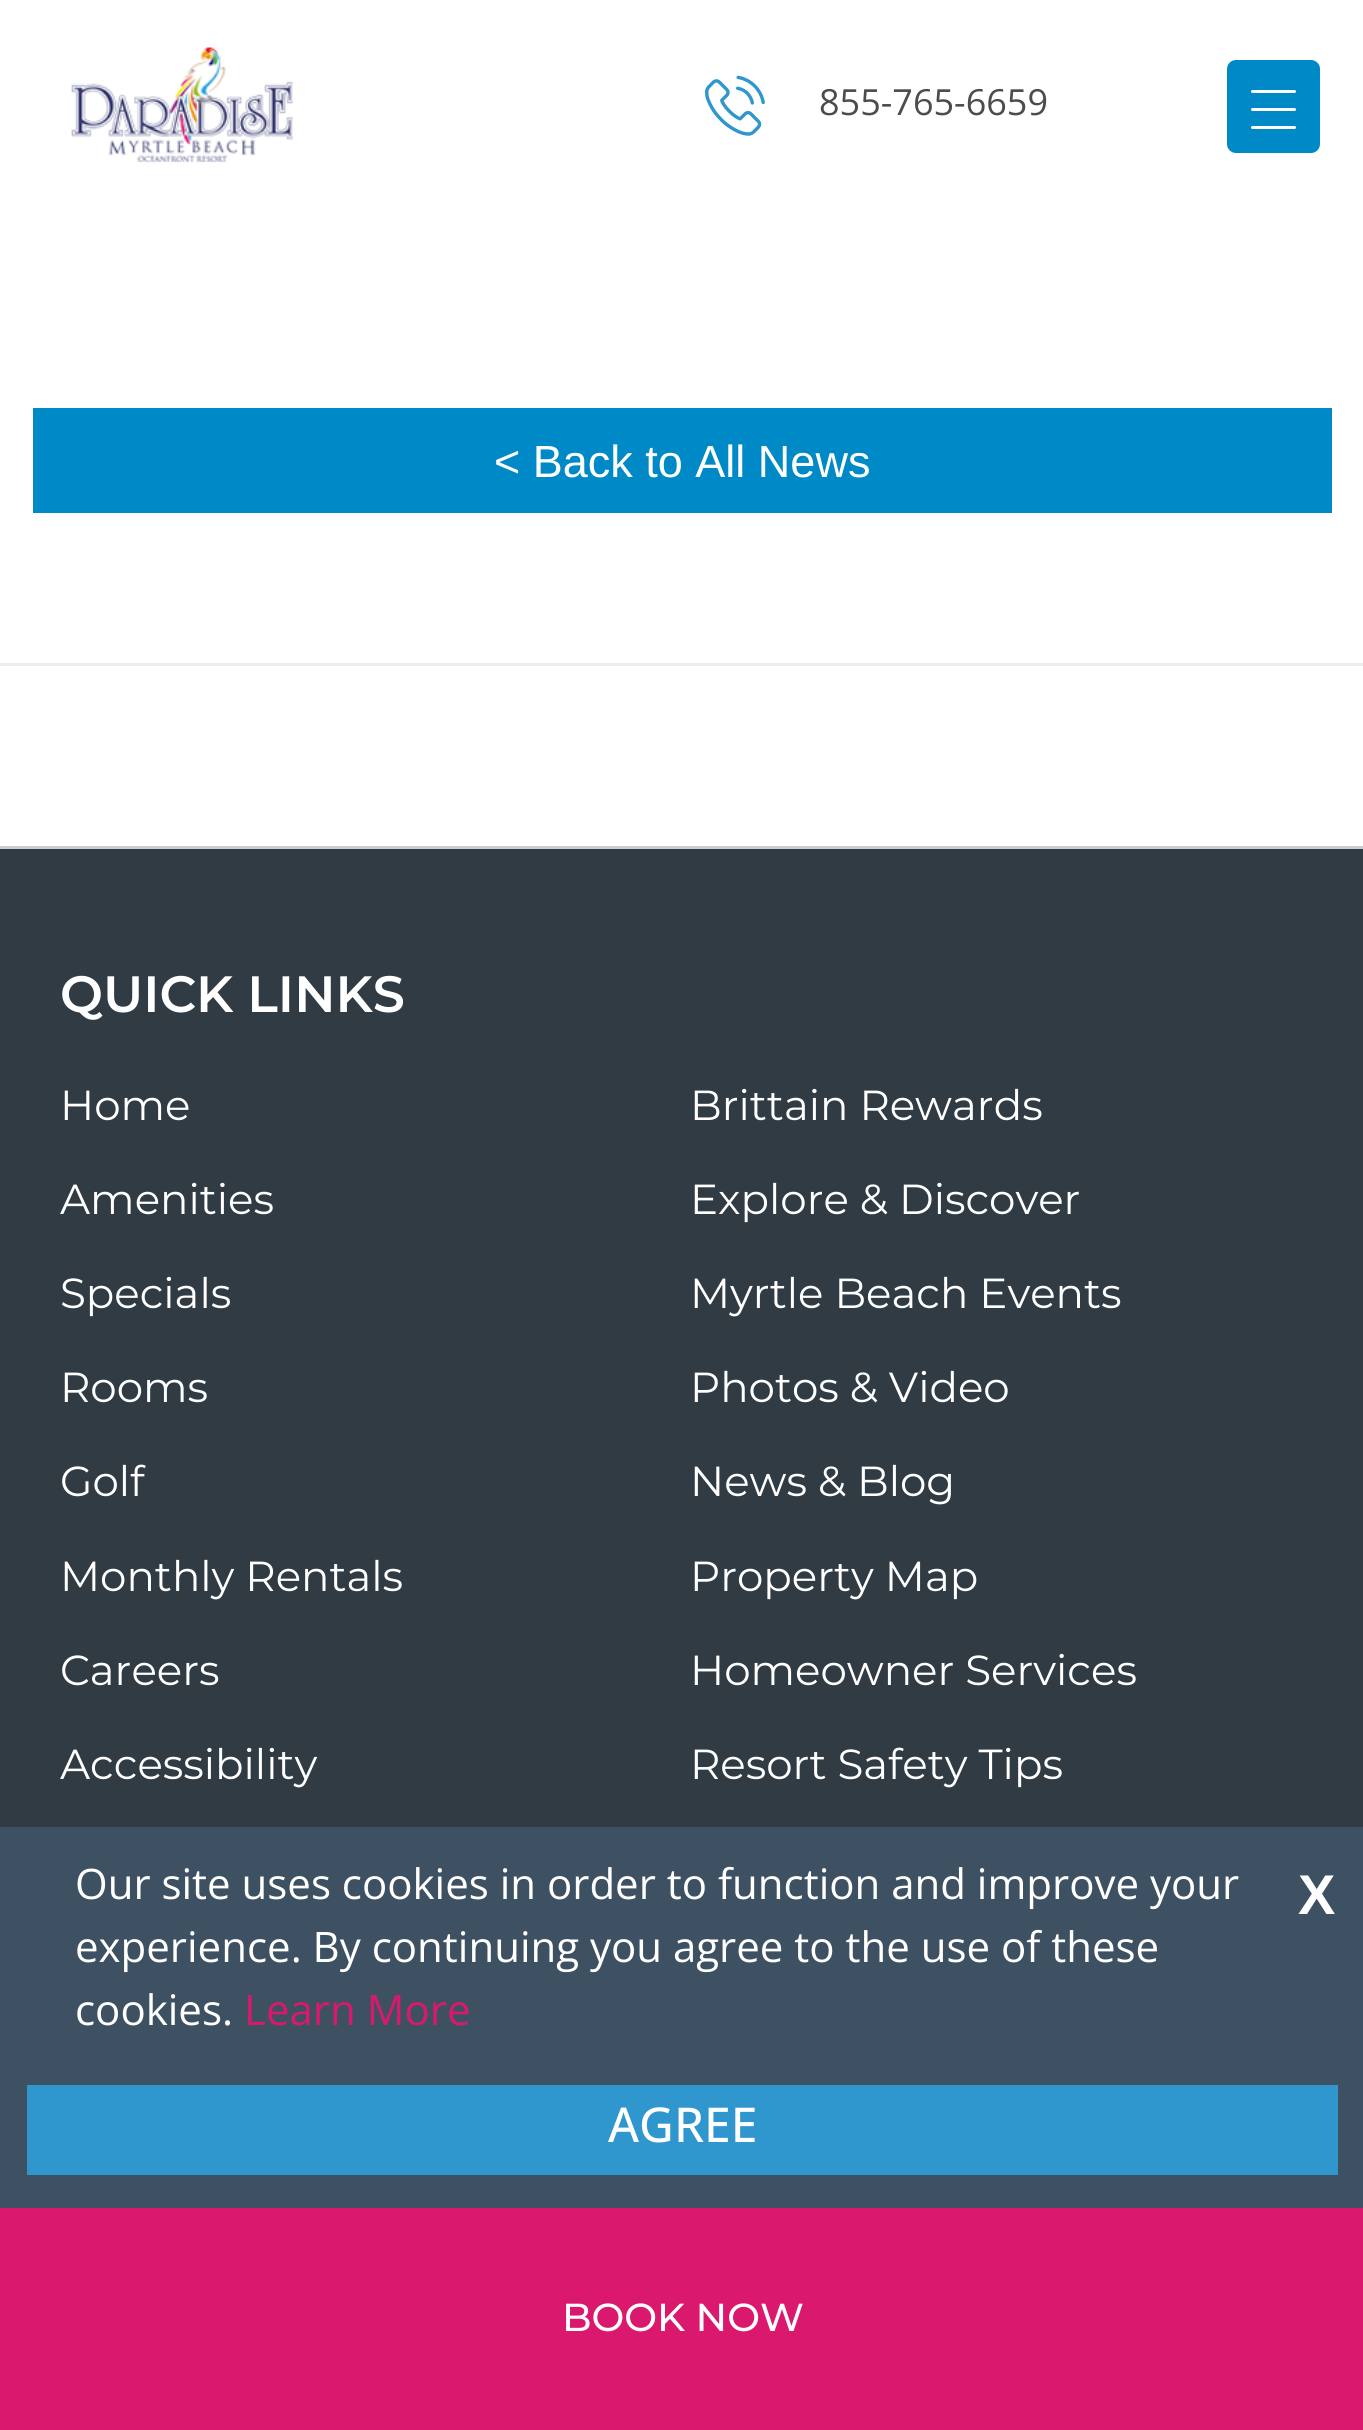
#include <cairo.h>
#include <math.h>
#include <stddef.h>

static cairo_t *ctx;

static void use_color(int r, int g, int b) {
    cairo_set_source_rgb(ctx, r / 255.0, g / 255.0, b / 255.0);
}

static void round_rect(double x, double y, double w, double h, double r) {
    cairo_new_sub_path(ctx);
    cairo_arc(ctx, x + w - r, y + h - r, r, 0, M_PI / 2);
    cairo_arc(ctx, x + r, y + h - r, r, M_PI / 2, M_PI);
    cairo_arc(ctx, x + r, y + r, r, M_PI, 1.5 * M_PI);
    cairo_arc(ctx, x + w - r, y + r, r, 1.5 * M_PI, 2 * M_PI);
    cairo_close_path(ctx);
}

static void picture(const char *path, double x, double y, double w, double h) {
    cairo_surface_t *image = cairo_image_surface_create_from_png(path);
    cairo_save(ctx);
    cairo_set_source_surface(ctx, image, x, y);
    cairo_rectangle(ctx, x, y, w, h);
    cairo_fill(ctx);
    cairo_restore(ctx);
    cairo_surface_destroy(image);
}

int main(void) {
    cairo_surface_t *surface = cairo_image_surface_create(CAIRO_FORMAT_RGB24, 1363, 2430);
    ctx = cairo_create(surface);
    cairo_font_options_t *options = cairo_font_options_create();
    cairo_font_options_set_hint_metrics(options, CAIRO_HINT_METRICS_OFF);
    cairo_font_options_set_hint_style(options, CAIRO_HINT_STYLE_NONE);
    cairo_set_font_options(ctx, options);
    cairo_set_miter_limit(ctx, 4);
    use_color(255, 255, 255);
    cairo_paint(ctx);
    picture("img1.png", 71, 47, 222, 116);
    picture("img2.png", 705, 75, 60, 61);
    cairo_select_font_face(ctx, "Open Sans", CAIRO_FONT_SLANT_NORMAL, CAIRO_FONT_WEIGHT_NORMAL);
    cairo_set_font_size(ctx, 36);
    use_color(76, 76, 76);
    cairo_move_to(ctx, 819, 115);
    cairo_show_text(ctx, "855-765-6659");
    use_color(0, 137, 199);
    round_rect(1227, 60, 93, 93, 9);
    cairo_fill(ctx);
    use_color(255, 255, 255);
    round_rect(1251, 90, 45, 3, 1.5);
    cairo_fill(ctx);
    round_rect(1251, 108, 45, 3, 1.5);
    cairo_fill(ctx);
    round_rect(1251, 126, 45, 3, 1.5);
    cairo_fill(ctx);
    use_color(0, 137, 199);
    cairo_rectangle(ctx, 33, 408, 1299, 105);
    cairo_fill(ctx);
    cairo_select_font_face(ctx, "Liberation Sans", CAIRO_FONT_SLANT_NORMAL, CAIRO_FONT_WEIGHT_NORMAL);
    cairo_set_font_size(ctx, 45);
    use_color(255, 255, 255);
    cairo_move_to(ctx, 494, 477);
    cairo_show_text(ctx, "< Back to All News");
    use_color(237, 237, 237);
    cairo_rectangle(ctx, 0, 663, 1363, 3);
    cairo_fill(ctx);
    use_color(48, 59, 68);
    cairo_rectangle(ctx, 0, 849, 1363, 978);
    cairo_fill(ctx);
    use_color(204, 204, 204);
    cairo_rectangle(ctx, 0, 846, 1363, 3);
    cairo_fill(ctx);
    cairo_select_font_face(ctx, "Montserrat SemiBold", CAIRO_FONT_SLANT_NORMAL, CAIRO_FONT_WEIGHT_NORMAL);
    cairo_set_font_size(ctx, 51);
    use_color(255, 255, 255);
    cairo_move_to(ctx, 60, 1012);
    cairo_show_text(ctx, "QUICK LINKS");
    cairo_select_font_face(ctx, "Montserrat", CAIRO_FONT_SLANT_NORMAL, CAIRO_FONT_WEIGHT_NORMAL);
    cairo_set_font_size(ctx, 42);
    cairo_move_to(ctx, 60, 1120);
    cairo_show_text(ctx, "Home");
    cairo_move_to(ctx, 60, 1214);
    cairo_show_text(ctx, "Amenities");
    cairo_move_to(ctx, 60, 1308);
    cairo_show_text(ctx, "Specials");
    cairo_move_to(ctx, 60, 1402);
    cairo_show_text(ctx, "Rooms");
    cairo_move_to(ctx, 60, 1496);
    cairo_show_text(ctx, "Golf");
    cairo_move_to(ctx, 60, 1591);
    cairo_show_text(ctx, "Monthly Rentals");
    cairo_move_to(ctx, 60, 1685);
    cairo_show_text(ctx, "Careers");
    cairo_move_to(ctx, 60, 1779);
    cairo_show_text(ctx, "Accessibility");
    cairo_move_to(ctx, 690, 1120);
    cairo_show_text(ctx, "Brittain Rewards");
    cairo_move_to(ctx, 690, 1214);
    cairo_show_text(ctx, "Explore & Discover");
    cairo_move_to(ctx, 690, 1308);
    cairo_show_text(ctx, "Myrtle Beach Events");
    cairo_move_to(ctx, 690, 1402);
    cairo_show_text(ctx, "Photos & Video");
    cairo_move_to(ctx, 690, 1496);
    cairo_show_text(ctx, "News & Blog");
    cairo_move_to(ctx, 690, 1591);
    cairo_show_text(ctx, "Property Map");
    cairo_move_to(ctx, 690, 1685);
    cairo_show_text(ctx, "Homeowner Services");
    cairo_move_to(ctx, 690, 1779);
    cairo_show_text(ctx, "Resort Safety Tips");
    use_color(61, 81, 98);
    cairo_rectangle(ctx, 0, 1827, 1363, 381);
    cairo_fill(ctx);
    cairo_select_font_face(ctx, "Open Sans", CAIRO_FONT_SLANT_NORMAL, CAIRO_FONT_WEIGHT_NORMAL);
    use_color(255, 255, 255);
    cairo_move_to(ctx, 75, 1899);
    cairo_show_text(ctx, "Our site uses cookies in order to function and improve your");
    cairo_move_to(ctx, 75, 1962);
    cairo_show_text(ctx, "experience. By continuing you agree to the use of these");
    cairo_move_to(ctx, 75, 2025);
    cairo_show_text(ctx, "cookies.");
    use_color(217, 24, 110);
    cairo_move_to(ctx, 244, 2025);
    cairo_show_text(ctx, "Learn More");
    use_color(48, 150, 206);
    cairo_rectangle(ctx, 27, 2085, 1311, 90);
    cairo_fill(ctx);
    cairo_select_font_face(ctx, "Open Sans Medium", CAIRO_FONT_SLANT_NORMAL, CAIRO_FONT_WEIGHT_NORMAL);
    cairo_set_font_size(ctx, 48);
    use_color(255, 255, 255);
    cairo_move_to(ctx, 608, 2142);
    cairo_show_text(ctx, "AGREE");
    cairo_select_font_face(ctx, "Liberation Sans", CAIRO_FONT_SLANT_NORMAL, CAIRO_FONT_WEIGHT_BOLD);
    cairo_set_font_size(ctx, 56);
    cairo_move_to(ctx, 1298, 1914);
    cairo_show_text(ctx, "X");
    use_color(217, 24, 110);
    cairo_rectangle(ctx, 0, 2208, 1363, 222);
    cairo_fill(ctx);
    cairo_select_font_face(ctx, "Montserrat Medium", CAIRO_FONT_SLANT_NORMAL, CAIRO_FONT_WEIGHT_NORMAL);
    cairo_set_font_size(ctx, 39);
    use_color(255, 255, 255);
    cairo_move_to(ctx, 562, 2331);
    cairo_show_text(ctx, "BOOK NOW");
    cairo_surface_write_to_png(surface, "result.png");
    cairo_font_options_destroy(options);
    cairo_destroy(ctx);
    cairo_surface_destroy(surface);
    return 0;
}
